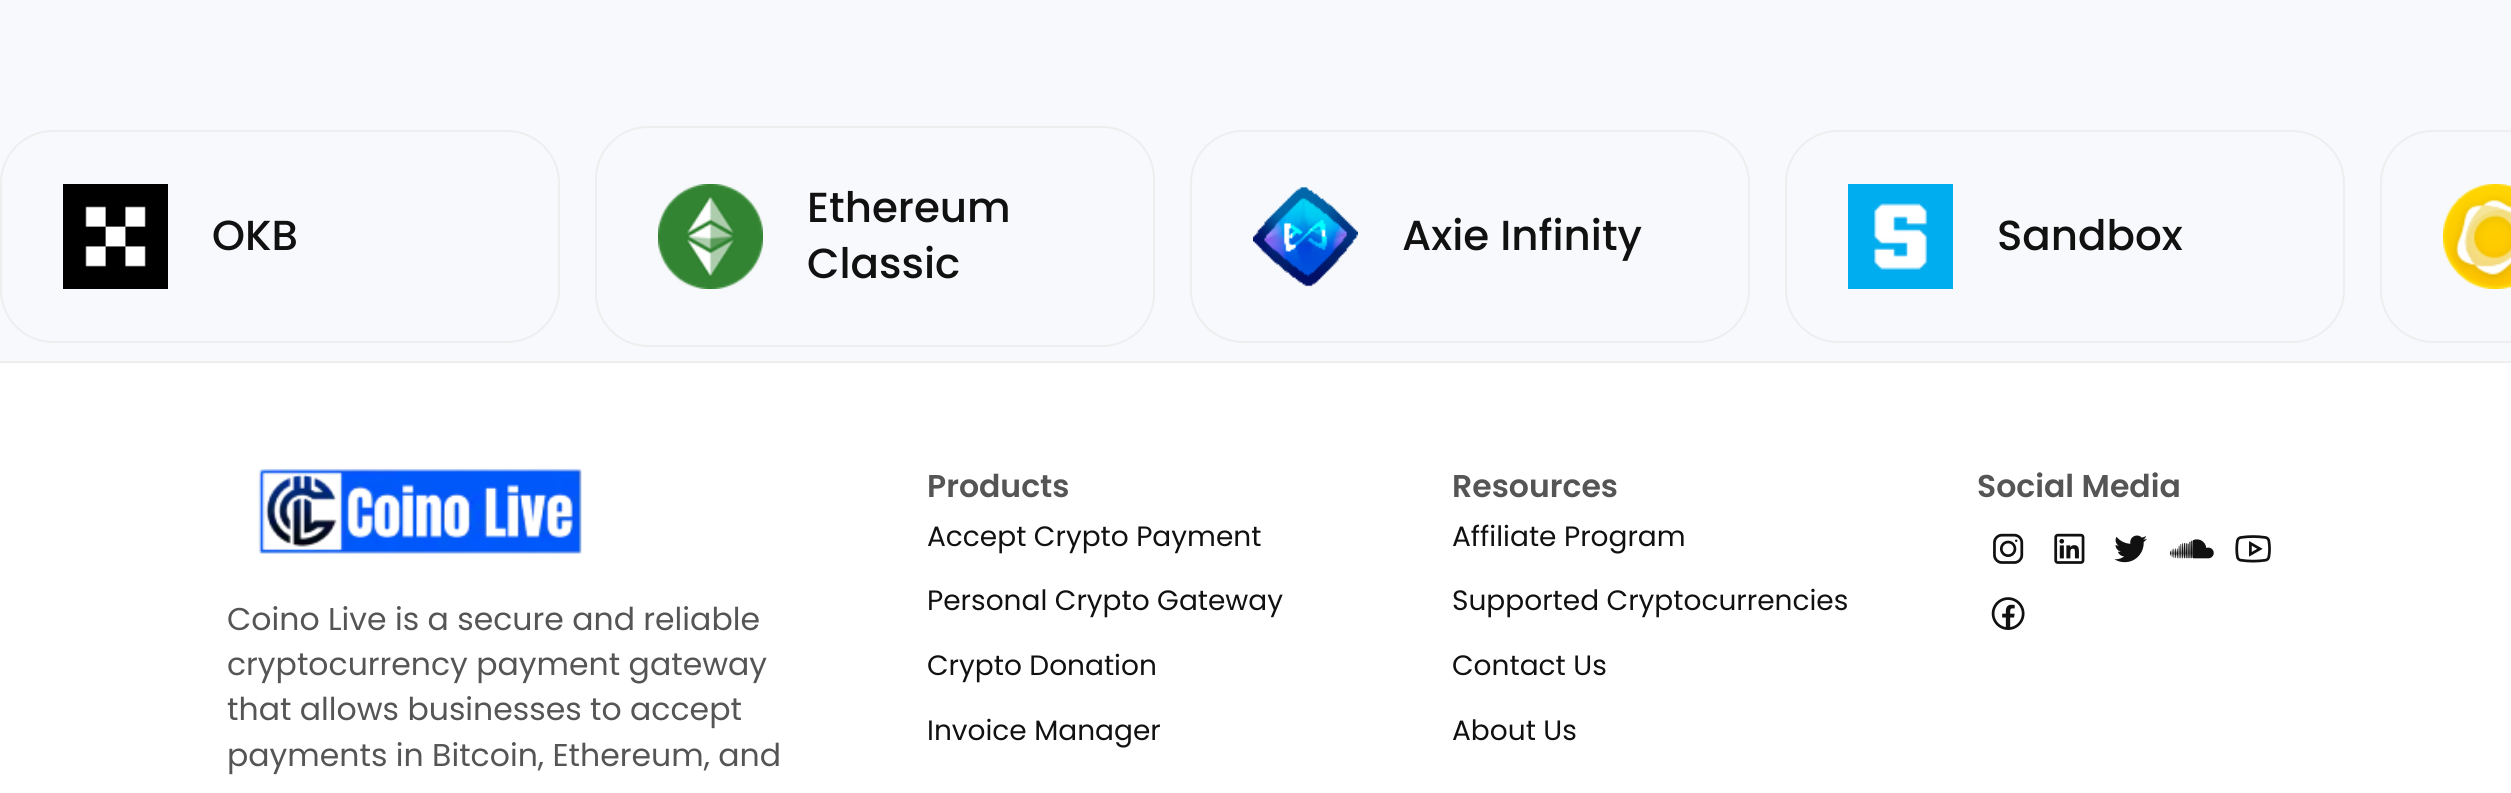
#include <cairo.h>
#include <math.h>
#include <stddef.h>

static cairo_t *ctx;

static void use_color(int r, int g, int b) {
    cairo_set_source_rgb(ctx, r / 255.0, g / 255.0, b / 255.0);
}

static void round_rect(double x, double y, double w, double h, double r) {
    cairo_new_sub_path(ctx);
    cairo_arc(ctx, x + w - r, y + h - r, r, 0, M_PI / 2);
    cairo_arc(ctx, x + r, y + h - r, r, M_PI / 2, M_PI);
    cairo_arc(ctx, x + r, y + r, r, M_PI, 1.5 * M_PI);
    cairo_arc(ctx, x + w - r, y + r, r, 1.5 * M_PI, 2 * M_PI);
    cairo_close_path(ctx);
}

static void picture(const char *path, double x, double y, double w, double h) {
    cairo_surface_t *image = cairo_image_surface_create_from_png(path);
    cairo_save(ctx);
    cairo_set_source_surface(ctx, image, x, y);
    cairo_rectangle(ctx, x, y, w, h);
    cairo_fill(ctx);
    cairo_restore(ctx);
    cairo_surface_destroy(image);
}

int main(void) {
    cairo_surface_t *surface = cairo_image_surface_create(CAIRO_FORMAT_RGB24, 2511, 793);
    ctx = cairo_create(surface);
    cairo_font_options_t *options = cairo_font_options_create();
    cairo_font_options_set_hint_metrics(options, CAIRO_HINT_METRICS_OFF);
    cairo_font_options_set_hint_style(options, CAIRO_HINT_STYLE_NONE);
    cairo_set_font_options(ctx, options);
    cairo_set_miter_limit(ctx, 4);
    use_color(255, 255, 255);
    cairo_paint(ctx);
    use_color(248, 249, 252);
    cairo_rectangle(ctx, 0, 0, 2511, 361);
    cairo_fill(ctx);
    round_rect(1, 131, 558, 211, 52);
    use_color(238, 238, 238);
    cairo_stroke(ctx);
    picture("img1.png", 63, 184, 105, 105);
    cairo_select_font_face(ctx, "Poppins Medium", CAIRO_FONT_SLANT_NORMAL, CAIRO_FONT_WEIGHT_NORMAL);
    cairo_set_font_size(ctx, 42);
    use_color(17, 17, 17);
    cairo_move_to(ctx, 212, 250);
    cairo_show_text(ctx, "OKB");
    round_rect(596, 127, 558, 219, 52);
    use_color(238, 238, 238);
    cairo_stroke(ctx);
    picture("img2.png", 658, 184, 105, 105);
    use_color(17, 17, 17);
    cairo_move_to(ctx, 807, 222);
    cairo_show_text(ctx, "Ethereum");
    cairo_move_to(ctx, 807, 278);
    cairo_show_text(ctx, "Classic");
    round_rect(1191, 131, 558, 211, 52);
    use_color(238, 238, 238);
    cairo_stroke(ctx);
    picture("img3.png", 1253, 187, 105, 100);
    use_color(17, 17, 17);
    cairo_move_to(ctx, 1402, 250);
    cairo_show_text(ctx, "Axie Infinity");
    round_rect(1786, 131, 558, 211, 52);
    use_color(238, 238, 238);
    cairo_stroke(ctx);
    picture("img4.png", 1848, 184, 105, 105);
    use_color(17, 17, 17);
    cairo_move_to(ctx, 1997, 250);
    cairo_show_text(ctx, "Sandbox");
    round_rect(2381, 131, 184, 211, 52);
    use_color(238, 238, 238);
    cairo_stroke(ctx);
    picture("img5.png", 2443, 184, 68, 105);
    cairo_rectangle(ctx, 0, 361, 2511, 2);
    cairo_fill(ctx);
    picture("img6.png", 258, 468, 324, 86);
    cairo_select_font_face(ctx, "Poppins", CAIRO_FONT_SLANT_NORMAL, CAIRO_FONT_WEIGHT_NORMAL);
    cairo_set_font_size(ctx, 31.5);
    use_color(85, 85, 85);
    cairo_move_to(ctx, 227, 630);
    cairo_show_text(ctx, "Coino Live is a secure and reliable");
    cairo_move_to(ctx, 227, 675);
    cairo_show_text(ctx, "cryptocurrency payment gateway");
    cairo_move_to(ctx, 227, 720);
    cairo_show_text(ctx, "that allows businesses to accept");
    cairo_move_to(ctx, 227, 766);
    cairo_show_text(ctx, "payments in Bitcoin, Ethereum, and");
    cairo_select_font_face(ctx, "Poppins SemiBold", CAIRO_FONT_SLANT_NORMAL, CAIRO_FONT_WEIGHT_NORMAL);
    cairo_move_to(ctx, 927, 497);
    cairo_show_text(ctx, "Products");
    cairo_select_font_face(ctx, "Poppins", CAIRO_FONT_SLANT_NORMAL, CAIRO_FONT_WEIGHT_NORMAL);
    cairo_set_font_size(ctx, 28);
    use_color(17, 17, 17);
    cairo_move_to(ctx, 927, 546);
    cairo_show_text(ctx, "Accept Crypto Payment");
    cairo_move_to(ctx, 927, 610);
    cairo_show_text(ctx, "Personal Crypto Gateway");
    cairo_move_to(ctx, 927, 675);
    cairo_show_text(ctx, "Crypto Donation");
    cairo_move_to(ctx, 927, 740);
    cairo_show_text(ctx, "Invoice Manager");
    cairo_select_font_face(ctx, "Poppins SemiBold", CAIRO_FONT_SLANT_NORMAL, CAIRO_FONT_WEIGHT_NORMAL);
    cairo_set_font_size(ctx, 31.5);
    use_color(85, 85, 85);
    cairo_move_to(ctx, 1452, 497);
    cairo_show_text(ctx, "Resources");
    cairo_select_font_face(ctx, "Poppins", CAIRO_FONT_SLANT_NORMAL, CAIRO_FONT_WEIGHT_NORMAL);
    cairo_set_font_size(ctx, 28);
    use_color(17, 17, 17);
    cairo_move_to(ctx, 1452, 546);
    cairo_show_text(ctx, "Affiliate Program");
    cairo_move_to(ctx, 1452, 610);
    cairo_show_text(ctx, "Supported Cryptocurrencies");
    cairo_move_to(ctx, 1452, 675);
    cairo_show_text(ctx, "Contact Us");
    cairo_move_to(ctx, 1452, 740);
    cairo_show_text(ctx, "About Us");
    cairo_select_font_face(ctx, "Poppins SemiBold", CAIRO_FONT_SLANT_NORMAL, CAIRO_FONT_WEIGHT_NORMAL);
    cairo_set_font_size(ctx, 31.5);
    use_color(85, 85, 85);
    cairo_move_to(ctx, 1977, 497);
    cairo_show_text(ctx, "Social Media");
    picture("img7.png", 1993, 533, 31, 31);
    picture("img8.png", 2054, 533, 31, 31);
    picture("img9.png", 2114, 535, 33, 28);
    picture("img10.png", 2170, 539, 44, 20);
    picture("img11.png", 2235, 535, 36, 28);
    picture("img12.png", 1991, 597, 34, 33);
    cairo_surface_write_to_png(surface, "result.png");
    cairo_font_options_destroy(options);
    cairo_destroy(ctx);
    cairo_surface_destroy(surface);
    return 0;
}
